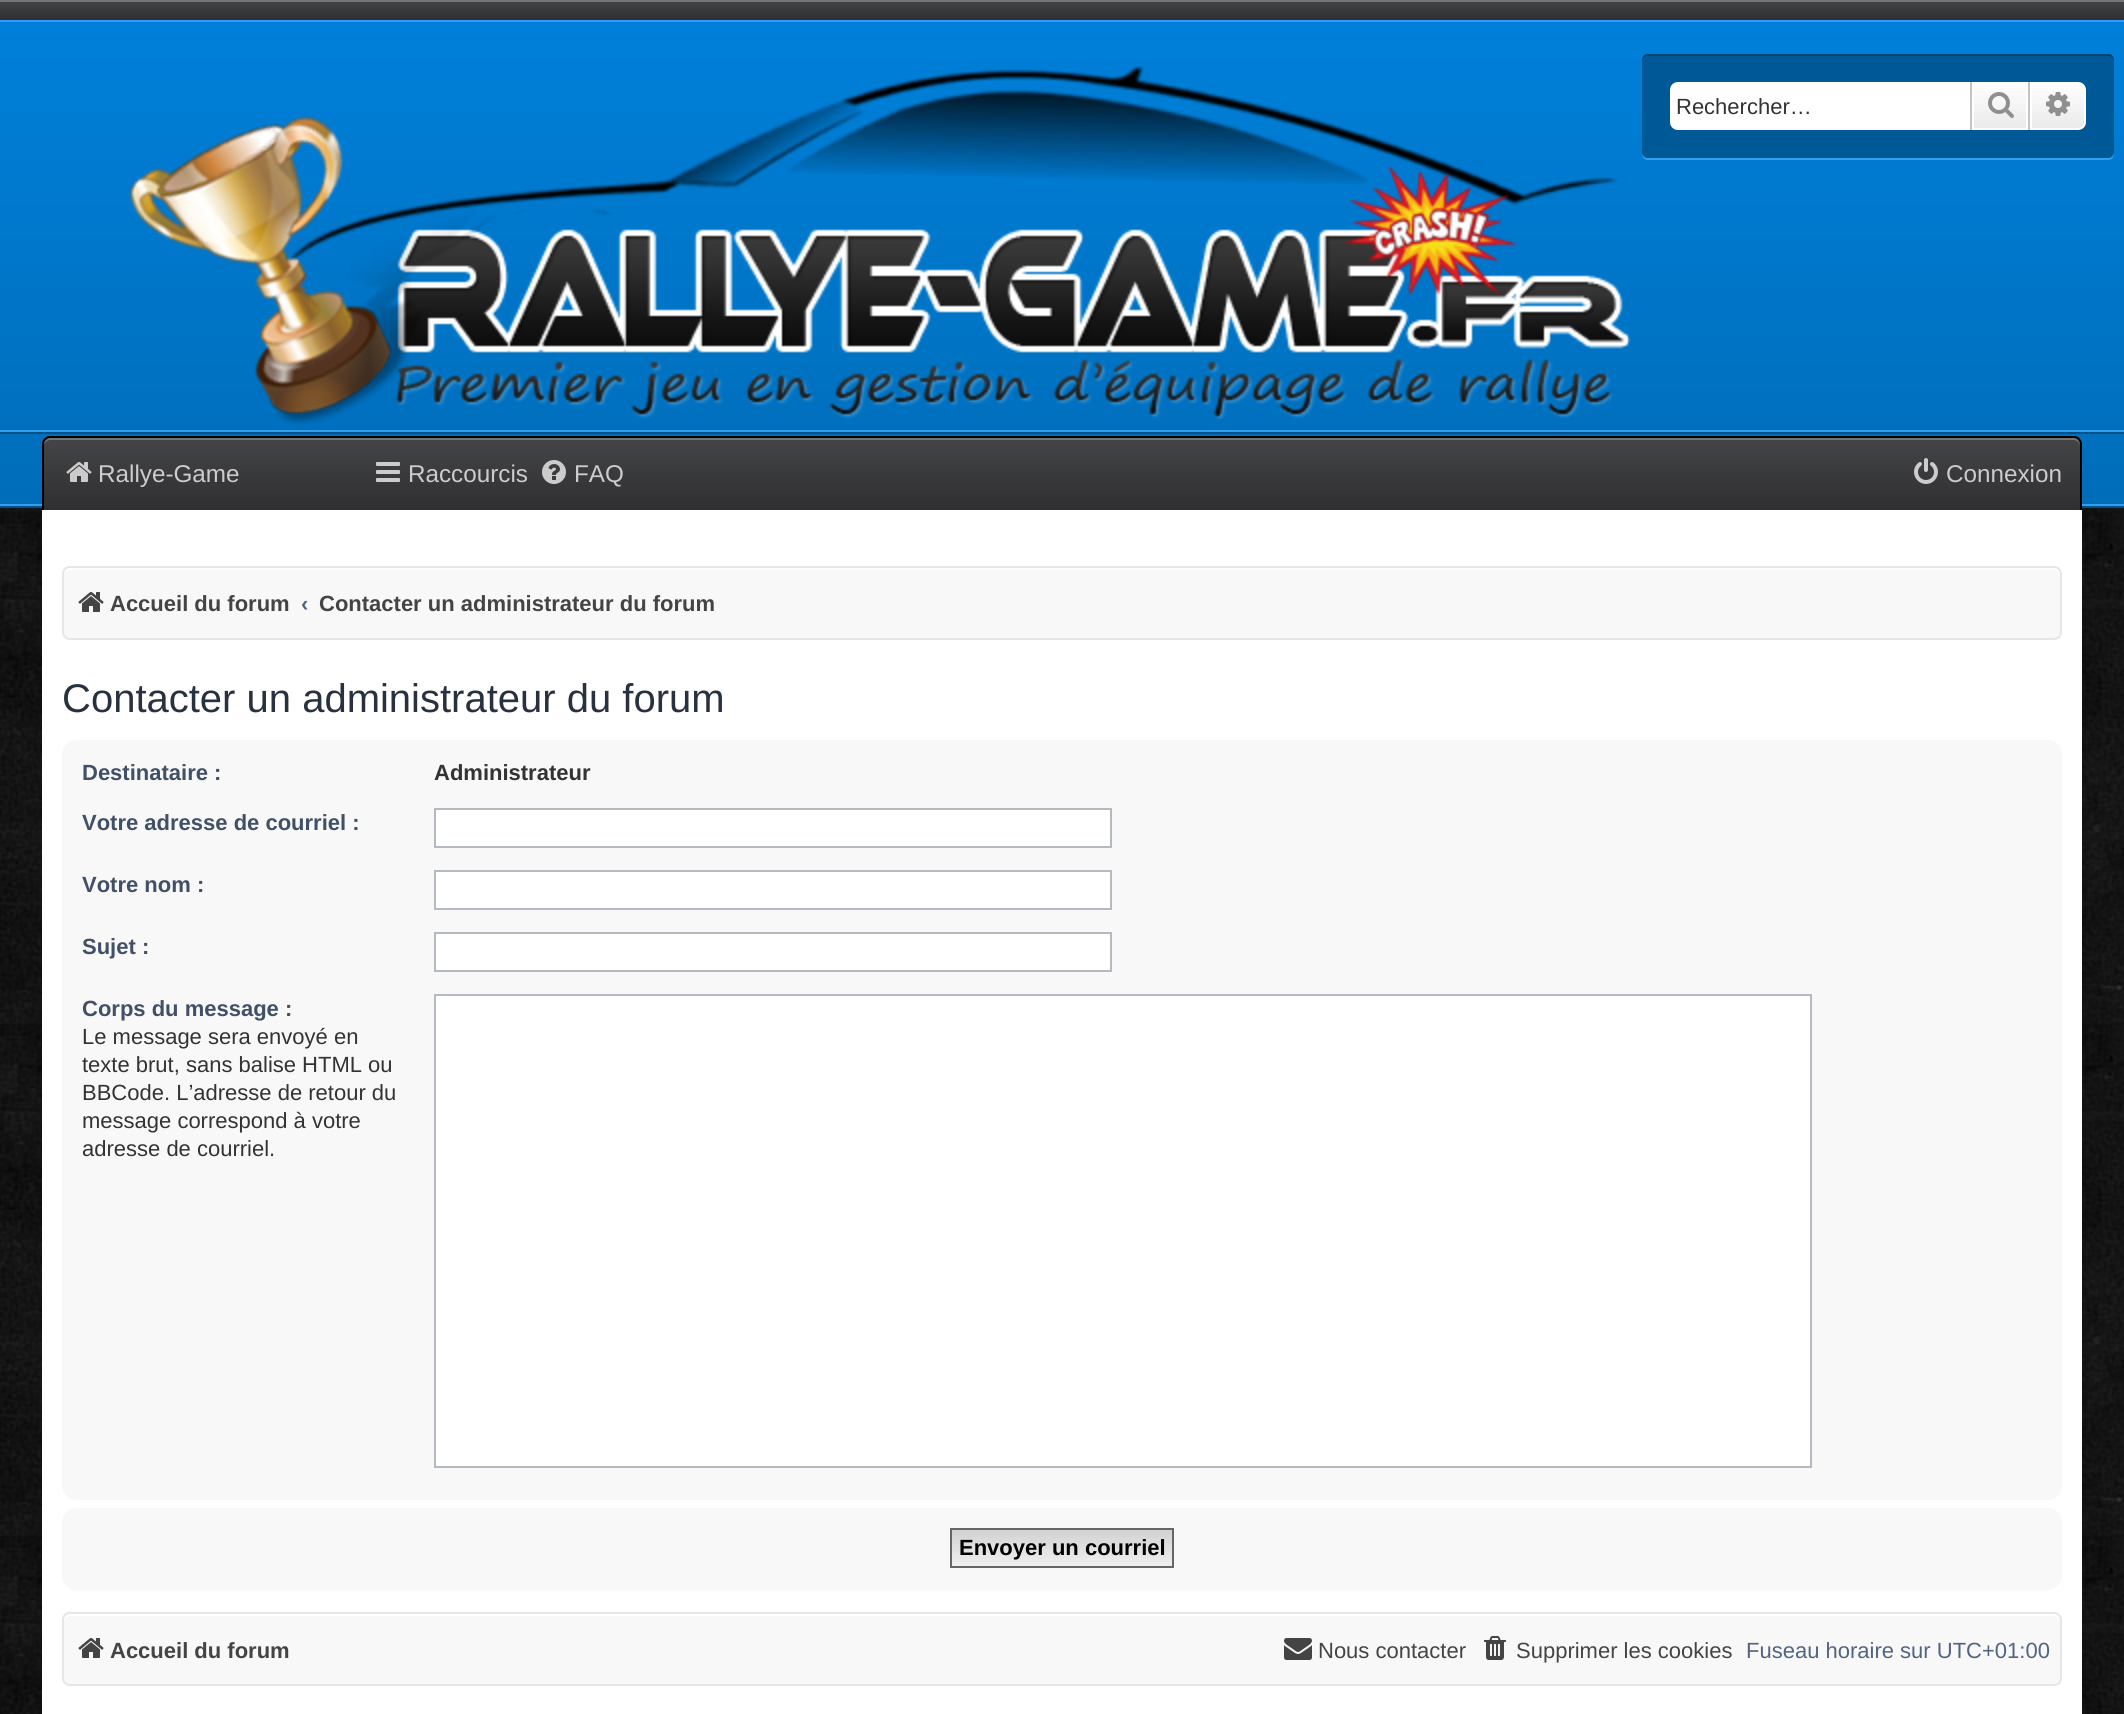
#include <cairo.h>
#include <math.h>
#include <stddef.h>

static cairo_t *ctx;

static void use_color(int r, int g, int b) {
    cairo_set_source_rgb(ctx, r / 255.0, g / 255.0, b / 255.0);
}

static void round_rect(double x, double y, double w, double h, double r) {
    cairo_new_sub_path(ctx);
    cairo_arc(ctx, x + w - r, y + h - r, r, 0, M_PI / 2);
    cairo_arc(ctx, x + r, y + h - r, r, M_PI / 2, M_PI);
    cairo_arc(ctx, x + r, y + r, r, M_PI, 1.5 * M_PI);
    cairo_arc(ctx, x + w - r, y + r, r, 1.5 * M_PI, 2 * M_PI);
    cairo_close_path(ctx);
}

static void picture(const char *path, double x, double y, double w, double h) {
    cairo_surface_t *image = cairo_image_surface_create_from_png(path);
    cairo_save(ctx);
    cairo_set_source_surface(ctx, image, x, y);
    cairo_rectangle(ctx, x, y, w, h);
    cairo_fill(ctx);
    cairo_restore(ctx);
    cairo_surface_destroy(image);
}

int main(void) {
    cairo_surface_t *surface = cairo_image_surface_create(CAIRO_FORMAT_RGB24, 2124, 1714);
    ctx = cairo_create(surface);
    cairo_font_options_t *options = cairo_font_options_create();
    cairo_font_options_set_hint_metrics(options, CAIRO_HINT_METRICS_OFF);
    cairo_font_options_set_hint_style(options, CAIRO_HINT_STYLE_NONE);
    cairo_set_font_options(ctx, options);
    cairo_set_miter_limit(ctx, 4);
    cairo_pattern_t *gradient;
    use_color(255, 255, 255);
    cairo_paint(ctx);
    picture("img1.png", 0, 508, 2124, 1206);
    gradient = cairo_pattern_create_linear(1062, 0, 1062, 20);
    cairo_pattern_add_color_stop_rgba(gradient, 0, 0.267, 0.271, 0.278, 1);
    cairo_pattern_add_color_stop_rgba(gradient, 1, 0.184, 0.184, 0.192, 1);
    cairo_set_source(ctx, gradient);
    cairo_pattern_destroy(gradient);
    cairo_rectangle(ctx, 0, 2, 2124, 18);
    cairo_fill(ctx);
    use_color(117, 117, 117);
    cairo_rectangle(ctx, 0, 0, 2124, 2);
    cairo_fill(ctx);
    use_color(51, 153, 255);
    cairo_rectangle(ctx, 0, 20, 2124, 2);
    cairo_fill(ctx);
    gradient = cairo_pattern_create_linear(1062, 22, 1062, 506);
    cairo_pattern_add_color_stop_rgba(gradient, 0, 0, 0.502, 0.855, 1);
    cairo_pattern_add_color_stop_rgba(gradient, 1, 0, 0.427, 0.725, 1);
    cairo_set_source(ctx, gradient);
    cairo_pattern_destroy(gradient);
    cairo_rectangle(ctx, 0, 22, 2124, 482);
    cairo_fill(ctx);
    use_color(51, 160, 237);
    cairo_rectangle(ctx, 0, 504, 2124, 2);
    cairo_fill(ctx);
    use_color(0, 81, 137);
    cairo_rectangle(ctx, 0, 506, 2124, 2);
    cairo_fill(ctx);
    use_color(51, 160, 237);
    cairo_rectangle(ctx, 0, 430, 2124, 2);
    cairo_fill(ctx);
    use_color(0, 81, 137);
    cairo_rectangle(ctx, 0, 432, 2124, 2);
    cairo_fill(ctx);
    picture("img2.png", 129, 66, 1502, 359);
    use_color(51, 160, 237);
    cairo_new_path(ctx);
    cairo_move_to(ctx, 1642, 152);
    cairo_curve_to(ctx, 1642, 156, 1643, 160, 1648, 160);
    cairo_line_to(ctx, 2108, 160);
    cairo_curve_to(ctx, 2113, 160, 2114, 156, 2114, 152);
    cairo_curve_to(ctx, 2114, 155, 2111, 158, 2108, 158);
    cairo_line_to(ctx, 1648, 158);
    cairo_curve_to(ctx, 1645, 158, 1642, 155, 1642, 152);
    cairo_close_path(ctx);
    cairo_fill(ctx);
    use_color(0, 88, 150);
    round_rect(1642, 54, 472, 104, 6);
    cairo_fill(ctx);
    use_color(0, 68, 116);
    cairo_new_path(ctx);
    cairo_move_to(ctx, 1648, 56);
    cairo_line_to(ctx, 2108, 56);
    cairo_curve_to(ctx, 2111, 56, 2114, 59, 2114, 62);
    cairo_curve_to(ctx, 2114, 58, 2113, 54, 2108, 54);
    cairo_line_to(ctx, 1648, 54);
    cairo_curve_to(ctx, 1643, 54, 1642, 58, 1642, 62);
    cairo_curve_to(ctx, 1642, 59, 1645, 56, 1648, 56);
    cairo_close_path(ctx);
    cairo_fill(ctx);
    use_color(255, 255, 255);
    cairo_new_path(ctx);
    cairo_move_to(ctx, 1678, 82);
    cairo_line_to(ctx, 1970, 82);
    cairo_line_to(ctx, 1970, 130);
    cairo_line_to(ctx, 1678, 130);
    cairo_curve_to(ctx, 1673.5, 130, 1670, 126.5, 1670, 122);
    cairo_line_to(ctx, 1670, 90);
    cairo_curve_to(ctx, 1670, 85.5, 1673.5, 82, 1678, 82);
    cairo_close_path(ctx);
    cairo_fill(ctx);
    cairo_select_font_face(ctx, "Liberation Sans", CAIRO_FONT_SLANT_NORMAL, CAIRO_FONT_WEIGHT_NORMAL);
    cairo_set_font_size(ctx, 22);
    use_color(51, 51, 51);
    cairo_move_to(ctx, 1676, 114);
    cairo_show_text(ctx, "Rechercher…");
    gradient = cairo_pattern_create_linear(2000, 82, 2000, 130);
    cairo_pattern_add_color_stop_rgba(gradient, 0, 1, 1, 1, 1);
    cairo_pattern_add_color_stop_rgba(gradient, 1, 0.914, 0.914, 0.914, 1);
    cairo_set_source(ctx, gradient);
    cairo_pattern_destroy(gradient);
    cairo_rectangle(ctx, 1974, 84, 52, 44);
    cairo_fill(ctx);
    cairo_rectangle(ctx, 1973, 83, 54, 46);
    use_color(255, 255, 255);
    cairo_stroke(ctx);
    use_color(199, 195, 191);
    cairo_rectangle(ctx, 2028, 82, 2, 48);
    cairo_fill(ctx);
    cairo_rectangle(ctx, 1970, 82, 2, 48);
    cairo_fill(ctx);
    picture("img3.png", 1988, 92, 26, 26);
    gradient = cairo_pattern_create_linear(2058, 82, 2058, 130);
    cairo_pattern_add_color_stop_rgba(gradient, 0, 1, 1, 1, 1);
    cairo_pattern_add_color_stop_rgba(gradient, 1, 0.914, 0.914, 0.914, 1);
    cairo_set_source(ctx, gradient);
    cairo_pattern_destroy(gradient);
    cairo_new_path(ctx);
    cairo_move_to(ctx, 2031, 83);
    cairo_line_to(ctx, 2078, 83);
    cairo_curve_to(ctx, 2082, 83, 2085, 86, 2085, 90);
    cairo_line_to(ctx, 2085, 122);
    cairo_curve_to(ctx, 2085, 126, 2082, 129, 2078, 129);
    cairo_line_to(ctx, 2031, 129);
    cairo_close_path(ctx);
    cairo_fill_preserve(ctx);
    use_color(255, 255, 255);
    cairo_stroke(ctx);
    picture("img4.png", 2046, 92, 24, 24);
    cairo_save(ctx);
    cairo_new_path(ctx);
    cairo_move_to(ctx, 50, 436);
    cairo_line_to(ctx, 2074, 436);
    cairo_curve_to(ctx, 2078.5, 436, 2082, 439.5, 2082, 444);
    cairo_line_to(ctx, 2082, 510);
    cairo_line_to(ctx, 42, 510);
    cairo_line_to(ctx, 42, 444);
    cairo_curve_to(ctx, 42, 439.5, 45.5, 436, 50, 436);
    cairo_close_path(ctx);
    cairo_clip(ctx);
    gradient = cairo_pattern_create_linear(1062, 366, 1062, 438);
    cairo_pattern_add_color_stop_rgba(gradient, 0, 0.267, 0.271, 0.278, 1);
    cairo_pattern_add_color_stop_rgba(gradient, 1, 0.184, 0.184, 0.192, 1);
    cairo_set_source(ctx, gradient);
    cairo_pattern_destroy(gradient);
    cairo_rectangle(ctx, 42, 436, 2040, 2);
    cairo_fill(ctx);
    gradient = cairo_pattern_create_linear(1062, 438, 1062, 510);
    cairo_pattern_add_color_stop_rgba(gradient, 0, 0.267, 0.271, 0.278, 1);
    cairo_pattern_add_color_stop_rgba(gradient, 1, 0.184, 0.184, 0.192, 1);
    cairo_set_source(ctx, gradient);
    cairo_pattern_destroy(gradient);
    cairo_rectangle(ctx, 42, 438, 2040, 72);
    cairo_fill(ctx);
    cairo_restore(ctx);
    use_color(117, 117, 117);
    cairo_new_path(ctx);
    cairo_move_to(ctx, 50, 440);
    cairo_line_to(ctx, 2074, 440);
    cairo_curve_to(ctx, 2077, 440, 2080, 443, 2080, 446);
    cairo_curve_to(ctx, 2080, 442, 2079, 438, 2074, 438);
    cairo_line_to(ctx, 50, 438);
    cairo_curve_to(ctx, 45, 438, 44, 442, 44, 446);
    cairo_curve_to(ctx, 44, 443, 47, 440, 50, 440);
    cairo_close_path(ctx);
    cairo_fill(ctx);
    use_color(0, 0, 0);
    cairo_set_fill_rule(ctx, CAIRO_FILL_RULE_EVEN_ODD);
    cairo_new_path(ctx);
    cairo_move_to(ctx, 50, 436);
    cairo_line_to(ctx, 2074, 436);
    cairo_curve_to(ctx, 2078, 436, 2082, 440, 2082, 444);
    cairo_line_to(ctx, 2082, 510);
    cairo_line_to(ctx, 42, 510);
    cairo_line_to(ctx, 42, 444);
    cairo_curve_to(ctx, 42, 440, 46, 436, 50, 436);
    cairo_close_path(ctx);
    cairo_move_to(ctx, 50, 438);
    cairo_line_to(ctx, 2074, 438);
    cairo_curve_to(ctx, 2077, 438, 2080, 441, 2080, 444);
    cairo_line_to(ctx, 2080, 510);
    cairo_line_to(ctx, 44, 510);
    cairo_line_to(ctx, 44, 444);
    cairo_curve_to(ctx, 44, 441, 47, 438, 50, 438);
    cairo_close_path(ctx);
    cairo_fill(ctx);
    picture("img5.png", 66, 462, 26, 20);
    cairo_set_font_size(ctx, 24.25);
    use_color(204, 204, 204);
    cairo_move_to(ctx, 98, 482);
    cairo_show_text(ctx, "Rallye-Game");
    picture("img6.png", 376, 462, 24, 20);
    cairo_move_to(ctx, 408, 482);
    cairo_show_text(ctx, "Raccourcis");
    picture("img7.png", 542, 460, 24, 24);
    cairo_move_to(ctx, 574, 482);
    cairo_show_text(ctx, "FAQ");
    picture("img8.png", 1914, 458, 24, 26);
    cairo_move_to(ctx, 1946, 482);
    cairo_show_text(ctx, "Connexion");
    use_color(255, 255, 255);
    cairo_rectangle(ctx, 42, 510, 2040, 1204);
    cairo_fill(ctx);
    use_color(248, 248, 248);
    round_rect(62, 566, 2000, 74, 8);
    cairo_fill(ctx);
    use_color(255, 255, 255);
    cairo_set_fill_rule(ctx, CAIRO_FILL_RULE_WINDING);
    cairo_new_path(ctx);
    cairo_move_to(ctx, 70, 570);
    cairo_line_to(ctx, 2054, 570);
    cairo_curve_to(ctx, 2057, 570, 2060, 573, 2060, 576);
    cairo_curve_to(ctx, 2060, 572, 2059, 568, 2054, 568);
    cairo_line_to(ctx, 70, 568);
    cairo_curve_to(ctx, 65, 568, 64, 572, 64, 576);
    cairo_curve_to(ctx, 64, 573, 67, 570, 70, 570);
    cairo_close_path(ctx);
    cairo_fill(ctx);
    round_rect(63, 567, 1998, 72, 7);
    use_color(230, 230, 230);
    cairo_stroke(ctx);
    picture("img9.png", 78, 592, 26, 20);
    cairo_select_font_face(ctx, "Liberation Sans", CAIRO_FONT_SLANT_NORMAL, CAIRO_FONT_WEIGHT_BOLD);
    cairo_set_font_size(ctx, 22);
    use_color(68, 68, 68);
    cairo_move_to(ctx, 110, 611);
    cairo_show_text(ctx, "Accueil du forum");
    use_color(83, 100, 130);
    cairo_move_to(ctx, 301, 611);
    cairo_show_text(ctx, "‹");
    use_color(68, 68, 68);
    cairo_move_to(ctx, 319, 611);
    cairo_show_text(ctx, "Contacter un administrateur du forum");
    cairo_select_font_face(ctx, "Liberation Sans", CAIRO_FONT_SLANT_NORMAL, CAIRO_FONT_WEIGHT_NORMAL);
    cairo_set_font_size(ctx, 40);
    use_color(40, 49, 63);
    cairo_move_to(ctx, 62, 712);
    cairo_show_text(ctx, "Contacter un administrateur du forum");
    use_color(248, 248, 248);
    round_rect(62, 740, 2000, 760, 14);
    cairo_fill(ctx);
    cairo_select_font_face(ctx, "Liberation Sans", CAIRO_FONT_SLANT_NORMAL, CAIRO_FONT_WEIGHT_BOLD);
    cairo_set_font_size(ctx, 22);
    use_color(66, 80, 103);
    cairo_move_to(ctx, 82, 780);
    cairo_show_text(ctx, "Destinataire :");
    use_color(51, 51, 51);
    cairo_move_to(ctx, 434, 780);
    cairo_show_text(ctx, "Administrateur");
    use_color(66, 80, 103);
    cairo_move_to(ctx, 82, 830);
    cairo_show_text(ctx, "Votre adresse de courriel :");
    use_color(255, 255, 255);
    cairo_rectangle(ctx, 435, 809, 676, 38);
    cairo_fill_preserve(ctx);
    use_color(180, 186, 192);
    cairo_stroke(ctx);
    use_color(66, 80, 103);
    cairo_move_to(ctx, 82, 892);
    cairo_show_text(ctx, "Votre nom :");
    use_color(255, 255, 255);
    cairo_rectangle(ctx, 435, 871, 676, 38);
    cairo_fill_preserve(ctx);
    use_color(180, 186, 192);
    cairo_stroke(ctx);
    use_color(66, 80, 103);
    cairo_move_to(ctx, 82, 954);
    cairo_show_text(ctx, "Sujet :");
    use_color(255, 255, 255);
    cairo_rectangle(ctx, 435, 933, 676, 38);
    cairo_fill_preserve(ctx);
    use_color(180, 186, 192);
    cairo_stroke(ctx);
    use_color(66, 80, 103);
    cairo_move_to(ctx, 82, 1016);
    cairo_show_text(ctx, "Corps du message :");
    cairo_select_font_face(ctx, "Liberation Sans", CAIRO_FONT_SLANT_NORMAL, CAIRO_FONT_WEIGHT_NORMAL);
    use_color(51, 51, 51);
    cairo_move_to(ctx, 82, 1044);
    cairo_show_text(ctx, "Le message sera envoyé en");
    cairo_move_to(ctx, 82, 1072);
    cairo_show_text(ctx, "texte brut, sans balise HTML ou");
    cairo_move_to(ctx, 82, 1100);
    cairo_show_text(ctx, "BBCode. L’adresse de retour du");
    cairo_move_to(ctx, 82, 1128);
    cairo_show_text(ctx, "message correspond à votre");
    cairo_move_to(ctx, 82, 1156);
    cairo_show_text(ctx, "adresse de courriel.");
    use_color(255, 255, 255);
    cairo_rectangle(ctx, 435, 995, 1376, 472);
    cairo_fill_preserve(ctx);
    use_color(180, 186, 192);
    cairo_stroke(ctx);
    use_color(248, 248, 248);
    round_rect(62, 1508, 2000, 82, 14);
    cairo_fill(ctx);
    gradient = cairo_pattern_create_linear(1062, 1530, 1062, 1566);
    cairo_pattern_add_color_stop_rgba(gradient, 0, 0.824, 0.824, 0.824, 1);
    cairo_pattern_add_color_stop_rgba(gradient, 1, 0.937, 0.937, 0.937, 1);
    cairo_set_source(ctx, gradient);
    cairo_pattern_destroy(gradient);
    cairo_rectangle(ctx, 952, 1530, 220, 36);
    cairo_fill(ctx);
    cairo_rectangle(ctx, 951, 1529, 222, 38);
    use_color(102, 102, 102);
    cairo_stroke(ctx);
    cairo_select_font_face(ctx, "Liberation Sans", CAIRO_FONT_SLANT_NORMAL, CAIRO_FONT_WEIGHT_BOLD);
    use_color(0, 0, 0);
    cairo_move_to(ctx, 959, 1555);
    cairo_show_text(ctx, "Envoyer un courriel");
    use_color(248, 248, 248);
    round_rect(62, 1612, 2000, 74, 8);
    cairo_fill(ctx);
    use_color(255, 255, 255);
    cairo_new_path(ctx);
    cairo_move_to(ctx, 70, 1616);
    cairo_line_to(ctx, 2054, 1616);
    cairo_curve_to(ctx, 2057, 1616, 2060, 1619, 2060, 1622);
    cairo_curve_to(ctx, 2060, 1618, 2059, 1614, 2054, 1614);
    cairo_line_to(ctx, 70, 1614);
    cairo_curve_to(ctx, 65, 1614, 64, 1618, 64, 1622);
    cairo_curve_to(ctx, 64, 1619, 67, 1616, 70, 1616);
    cairo_close_path(ctx);
    cairo_fill(ctx);
    round_rect(63, 1613, 1998, 72, 7);
    use_color(230, 230, 230);
    cairo_stroke(ctx);
    picture("img9.png", 78, 1638, 26, 20);
    use_color(68, 68, 68);
    cairo_move_to(ctx, 110, 1658);
    cairo_show_text(ctx, "Accueil du forum");
    picture("img10.png", 1284, 1638, 28, 22);
    cairo_select_font_face(ctx, "Liberation Sans", CAIRO_FONT_SLANT_NORMAL, CAIRO_FONT_WEIGHT_NORMAL);
    cairo_move_to(ctx, 1318, 1658);
    cairo_show_text(ctx, "Nous contacter");
    picture("img11.png", 1484, 1636, 22, 24);
    cairo_move_to(ctx, 1516, 1658);
    cairo_show_text(ctx, "Supprimer les cookies");
    use_color(83, 100, 130);
    cairo_move_to(ctx, 1746, 1658);
    cairo_show_text(ctx, "Fuseau horaire sur UTC+01:00");
    cairo_surface_write_to_png(surface, "result.png");
    cairo_font_options_destroy(options);
    cairo_destroy(ctx);
    cairo_surface_destroy(surface);
    return 0;
}
